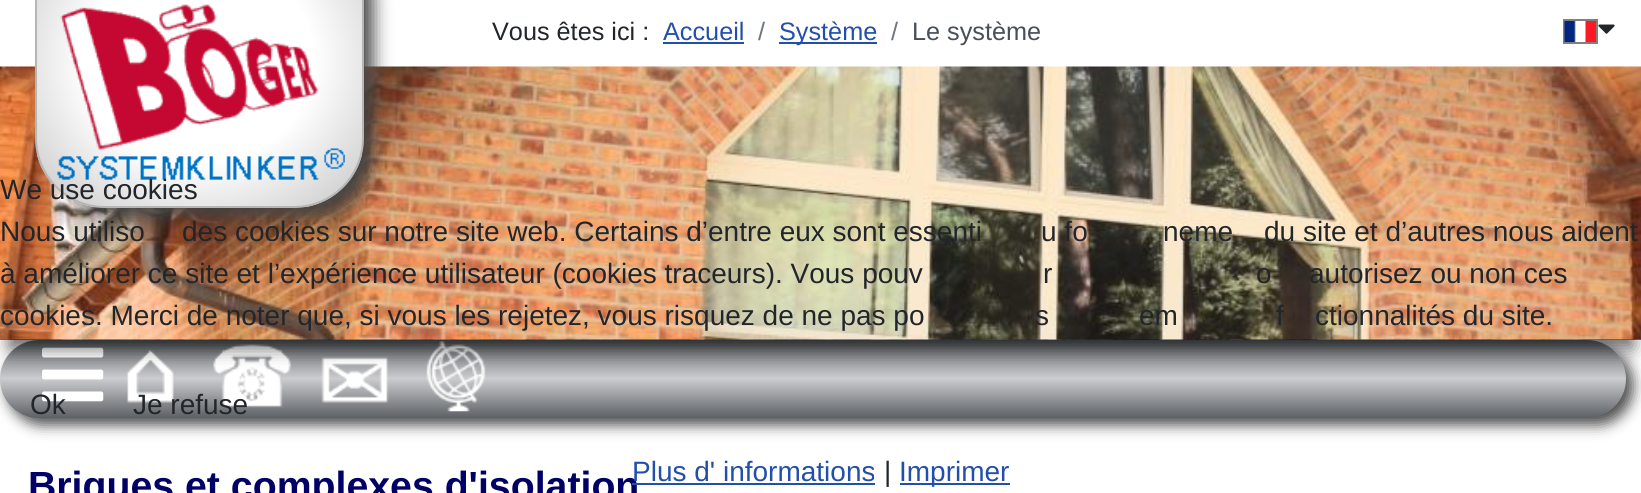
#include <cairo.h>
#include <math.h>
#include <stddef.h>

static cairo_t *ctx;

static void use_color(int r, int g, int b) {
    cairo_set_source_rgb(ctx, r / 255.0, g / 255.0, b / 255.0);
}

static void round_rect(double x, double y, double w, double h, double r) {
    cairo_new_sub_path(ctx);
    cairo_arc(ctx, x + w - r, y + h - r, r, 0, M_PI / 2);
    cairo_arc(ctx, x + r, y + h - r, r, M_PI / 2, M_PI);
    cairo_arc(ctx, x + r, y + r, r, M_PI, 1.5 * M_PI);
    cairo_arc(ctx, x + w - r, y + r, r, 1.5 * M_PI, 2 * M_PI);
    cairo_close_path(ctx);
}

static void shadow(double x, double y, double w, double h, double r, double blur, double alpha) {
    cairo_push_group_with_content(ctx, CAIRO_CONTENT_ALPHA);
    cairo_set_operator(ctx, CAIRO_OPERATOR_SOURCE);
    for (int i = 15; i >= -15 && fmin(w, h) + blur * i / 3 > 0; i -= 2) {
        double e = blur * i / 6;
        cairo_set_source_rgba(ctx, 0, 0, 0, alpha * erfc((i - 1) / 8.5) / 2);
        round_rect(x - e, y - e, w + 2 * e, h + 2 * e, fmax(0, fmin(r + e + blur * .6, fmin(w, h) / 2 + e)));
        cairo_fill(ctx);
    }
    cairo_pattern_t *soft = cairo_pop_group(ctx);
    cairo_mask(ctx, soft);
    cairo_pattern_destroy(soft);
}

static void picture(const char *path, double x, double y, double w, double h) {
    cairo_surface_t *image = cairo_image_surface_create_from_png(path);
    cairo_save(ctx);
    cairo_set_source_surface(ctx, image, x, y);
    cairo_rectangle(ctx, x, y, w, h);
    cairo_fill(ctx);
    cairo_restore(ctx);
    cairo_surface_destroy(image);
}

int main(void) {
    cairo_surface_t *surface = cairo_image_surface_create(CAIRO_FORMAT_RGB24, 1641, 493);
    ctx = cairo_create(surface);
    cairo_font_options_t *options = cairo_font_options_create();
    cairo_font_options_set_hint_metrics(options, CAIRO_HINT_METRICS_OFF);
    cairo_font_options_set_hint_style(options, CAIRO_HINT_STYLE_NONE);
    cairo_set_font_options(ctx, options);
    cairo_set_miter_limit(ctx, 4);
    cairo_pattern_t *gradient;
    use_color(255, 255, 255);
    cairo_paint(ctx);
    picture("img1.png", 0, 339, 1641, 1);
    use_color(0, 0, 0);
    shadow(7, 347, 1626, 78, 39, 7, 0.7);
    gradient = cairo_pattern_create_linear(813, 339, 813, 418);
    cairo_pattern_add_color_stop_rgba(gradient, 0, 0.361, 0.38, 0.396, 1);
    cairo_pattern_add_color_stop_rgba(gradient, 0.5, 0.8, 0.8, 0.812, 1);
    cairo_pattern_add_color_stop_rgba(gradient, 1, 0.361, 0.38, 0.396, 1);
    cairo_set_source(ctx, gradient);
    cairo_pattern_destroy(gradient);
    round_rect(0, 340, 1626, 78, 39);
    cairo_fill(ctx);
    picture("img6.png", 42, 347, 62, 55);
    picture("img7.png", 126, 349, 48, 54);
    picture("img8.png", 213, 344, 78, 64);
    picture("img9.png", 321, 356, 68, 47);
    picture("img10.png", 426, 341, 60, 71);
    use_color(0, 0, 0);
    shadow(9, 93, 1624, 255, 0, 9, 0.6);
    picture("img5.png", 0, 66, 1641, 274);
    use_color(68, 68, 68);
    shadow(61, -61, 312, 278, 61, 9, 1);
    cairo_save(ctx);
    cairo_new_path(ctx);
    cairo_move_to(ctx, 35, -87);
    cairo_line_to(ctx, 364, -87);
    cairo_line_to(ctx, 364, 138);
    cairo_curve_to(ctx, 364, 176.5, 332.5, 208, 294, 208);
    cairo_line_to(ctx, 105, 208);
    cairo_curve_to(ctx, 66.5, 208, 35, 176.5, 35, 138);
    cairo_close_path(ctx);
    cairo_clip(ctx);
    gradient = cairo_pattern_create_radial(0, 0, 0, 0, 0, 1);
    cairo_pattern_set_matrix(gradient, &(cairo_matrix_t){1.0 / 253, 0, 0, 1.0 / 227, -1.0 * 200 / 253, -1.0 * 60 / 227});
    cairo_pattern_add_color_stop_rgba(gradient, 0.45, 1, 1, 1, 1);
    cairo_pattern_add_color_stop_rgba(gradient, 1, 0.733, 0.733, 0.733, 1);
    cairo_set_source(ctx, gradient);
    cairo_pattern_destroy(gradient);
    cairo_rectangle(ctx, 37, 0, 325, 207);
    cairo_fill(ctx);
    cairo_restore(ctx);
    cairo_new_path(ctx);
    cairo_move_to(ctx, 36, -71);
    cairo_line_to(ctx, 363, -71);
    cairo_line_to(ctx, 363, 138);
    cairo_curve_to(ctx, 363, 176, 332, 207, 294, 207);
    cairo_line_to(ctx, 105, 207);
    cairo_curve_to(ctx, 67, 207, 36, 176, 36, 138);
    cairo_close_path(ctx);
    use_color(182, 182, 182);
    cairo_stroke(ctx);
    picture("img2.png", 57, 4, 288, 176);
    cairo_select_font_face(ctx, "Liberation Sans", CAIRO_FONT_SLANT_NORMAL, CAIRO_FONT_WEIGHT_NORMAL);
    cairo_set_font_size(ctx, 25.25);
    use_color(34, 38, 42);
    cairo_move_to(ctx, 492, 40);
    cairo_show_text(ctx, "Vous êtes ici :");
    use_color(34, 79, 170);
    cairo_move_to(ctx, 663, 40);
    cairo_show_text(ctx, "Accueil");
    cairo_rectangle(ctx, 663, 42, 81, 2);
    cairo_fill(ctx);
    use_color(109, 117, 126);
    cairo_move_to(ctx, 758, 40);
    cairo_show_text(ctx, "/");
    use_color(34, 79, 170);
    cairo_rectangle(ctx, 779, 42, 98, 2);
    cairo_fill(ctx);
    cairo_move_to(ctx, 779, 40);
    cairo_show_text(ctx, "Système");
    use_color(109, 117, 126);
    cairo_move_to(ctx, 891, 40);
    cairo_show_text(ctx, "/");
    use_color(72, 79, 86);
    cairo_move_to(ctx, 912, 40);
    cairo_show_text(ctx, "Le système");
    cairo_rectangle(ctx, 1564, 20, 33, 23);
    use_color(128, 128, 128);
    cairo_stroke(ctx);
    picture("img3.png", 1564, 21, 32, 21);
    picture("img4.png", 1598, 24, 17, 10);
    cairo_set_font_size(ctx, 28);
    use_color(34, 38, 42);
    cairo_move_to(ctx, 0, 199);
    cairo_show_text(ctx, "We use cookies");
    cairo_move_to(ctx, 0, 241);
    cairo_show_text(ctx, "Nous utiliso");
    cairo_move_to(ctx, 182, 241);
    cairo_show_text(ctx, "des cookies sur notre site web. Certains d’entre eux sont essenti");
    cairo_move_to(ctx, 1041, 241);
    cairo_show_text(ctx, "u fo");
    cairo_move_to(ctx, 1163, 241);
    cairo_show_text(ctx, "neme");
    cairo_move_to(ctx, 1264, 241);
    cairo_show_text(ctx, "du site et d’autres nous aident");
    cairo_move_to(ctx, 0, 283);
    cairo_show_text(ctx, "à améliorer ce site et l’expérience utilisateur (cookies traceurs). Vous pouv");
    cairo_move_to(ctx, 1043, 283);
    cairo_show_text(ctx, "r");
    cairo_move_to(ctx, 1256, 283);
    cairo_show_text(ctx, "o");
    cairo_move_to(ctx, 1309, 283);
    cairo_show_text(ctx, "autorisez ou non ces");
    cairo_move_to(ctx, 0, 325);
    cairo_show_text(ctx, "cookies. Merci de noter que, si vous les rejetez, vous risquez de ne pas po");
    cairo_move_to(ctx, 1035, 325);
    cairo_show_text(ctx, "s");
    cairo_move_to(ctx, 1139, 325);
    cairo_show_text(ctx, "em");
    cairo_move_to(ctx, 1276, 325);
    cairo_show_text(ctx, "f");
    cairo_move_to(ctx, 1315, 325);
    cairo_show_text(ctx, "ctionnalités du site.");
    cairo_move_to(ctx, 30, 414);
    cairo_show_text(ctx, "Ok");
    cairo_move_to(ctx, 133, 414);
    cairo_show_text(ctx, "Je refuse");
    cairo_select_font_face(ctx, "Liberation Sans", CAIRO_FONT_SLANT_NORMAL, CAIRO_FONT_WEIGHT_BOLD);
    cairo_set_font_size(ctx, 39.25);
    use_color(0, 0, 102);
    cairo_move_to(ctx, 28, 499);
    cairo_show_text(ctx, "Briques et complexes d'isolation");
    cairo_select_font_face(ctx, "Liberation Sans", CAIRO_FONT_SLANT_NORMAL, CAIRO_FONT_WEIGHT_NORMAL);
    cairo_set_font_size(ctx, 28);
    use_color(34, 79, 170);
    cairo_move_to(ctx, 632, 481);
    cairo_show_text(ctx, "Plus d' informations");
    cairo_rectangle(ctx, 632, 483, 243, 2);
    cairo_fill(ctx);
    use_color(34, 38, 42);
    cairo_move_to(ctx, 884, 481);
    cairo_show_text(ctx, "|");
    use_color(34, 79, 170);
    cairo_rectangle(ctx, 900, 483, 110, 2);
    cairo_fill(ctx);
    cairo_move_to(ctx, 899, 481);
    cairo_show_text(ctx, "Imprimer");
    cairo_surface_write_to_png(surface, "result.png");
    cairo_font_options_destroy(options);
    cairo_destroy(ctx);
    cairo_surface_destroy(surface);
    return 0;
}
